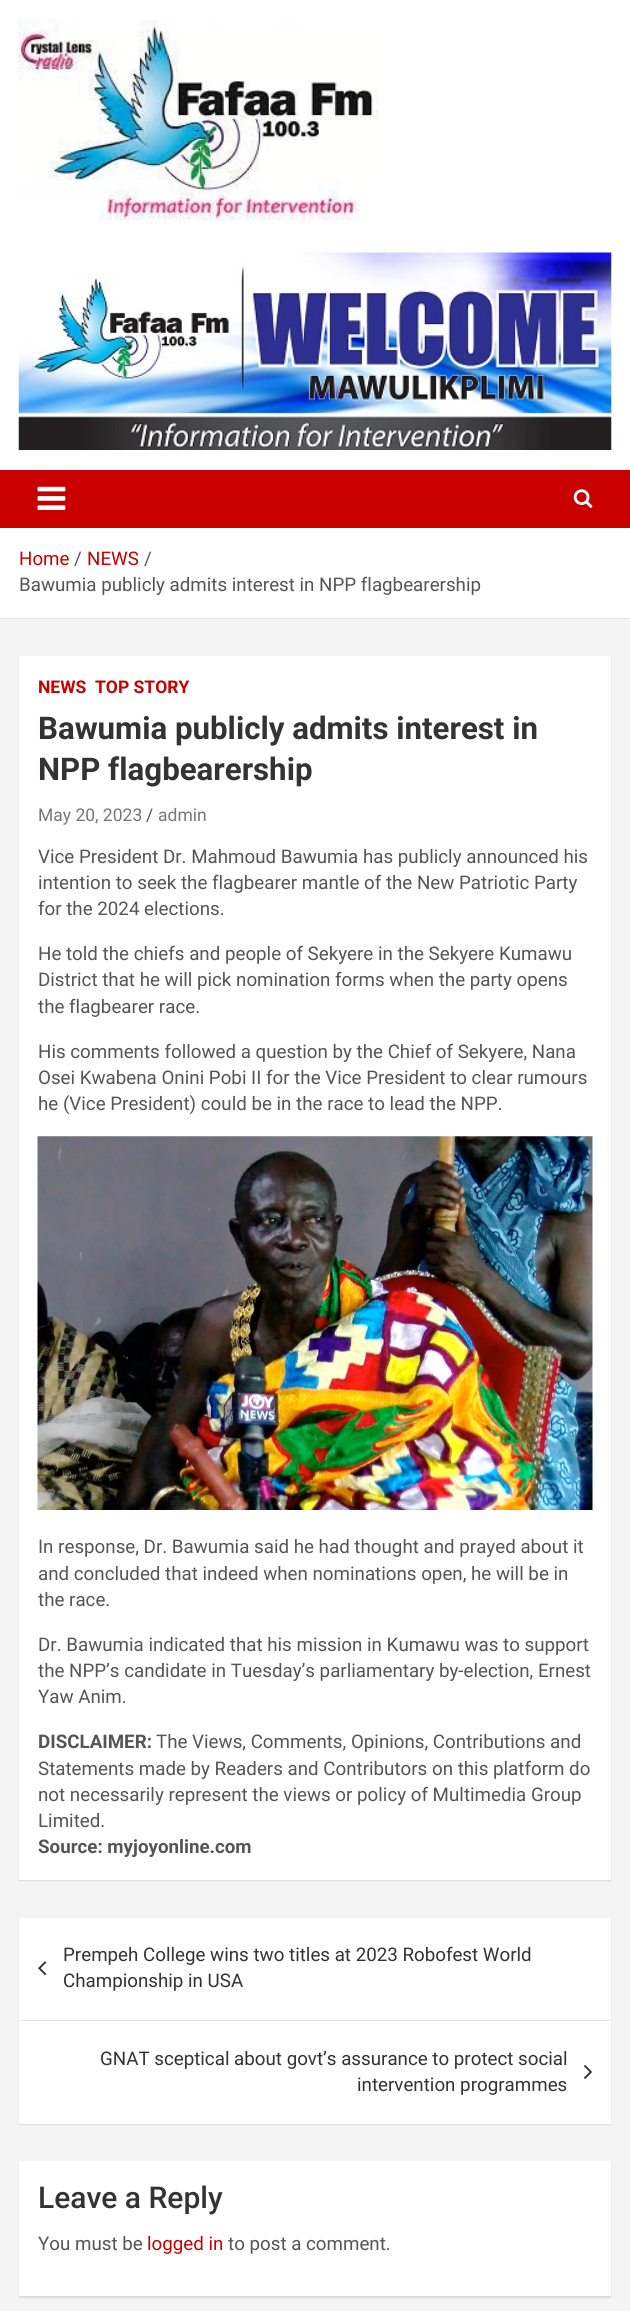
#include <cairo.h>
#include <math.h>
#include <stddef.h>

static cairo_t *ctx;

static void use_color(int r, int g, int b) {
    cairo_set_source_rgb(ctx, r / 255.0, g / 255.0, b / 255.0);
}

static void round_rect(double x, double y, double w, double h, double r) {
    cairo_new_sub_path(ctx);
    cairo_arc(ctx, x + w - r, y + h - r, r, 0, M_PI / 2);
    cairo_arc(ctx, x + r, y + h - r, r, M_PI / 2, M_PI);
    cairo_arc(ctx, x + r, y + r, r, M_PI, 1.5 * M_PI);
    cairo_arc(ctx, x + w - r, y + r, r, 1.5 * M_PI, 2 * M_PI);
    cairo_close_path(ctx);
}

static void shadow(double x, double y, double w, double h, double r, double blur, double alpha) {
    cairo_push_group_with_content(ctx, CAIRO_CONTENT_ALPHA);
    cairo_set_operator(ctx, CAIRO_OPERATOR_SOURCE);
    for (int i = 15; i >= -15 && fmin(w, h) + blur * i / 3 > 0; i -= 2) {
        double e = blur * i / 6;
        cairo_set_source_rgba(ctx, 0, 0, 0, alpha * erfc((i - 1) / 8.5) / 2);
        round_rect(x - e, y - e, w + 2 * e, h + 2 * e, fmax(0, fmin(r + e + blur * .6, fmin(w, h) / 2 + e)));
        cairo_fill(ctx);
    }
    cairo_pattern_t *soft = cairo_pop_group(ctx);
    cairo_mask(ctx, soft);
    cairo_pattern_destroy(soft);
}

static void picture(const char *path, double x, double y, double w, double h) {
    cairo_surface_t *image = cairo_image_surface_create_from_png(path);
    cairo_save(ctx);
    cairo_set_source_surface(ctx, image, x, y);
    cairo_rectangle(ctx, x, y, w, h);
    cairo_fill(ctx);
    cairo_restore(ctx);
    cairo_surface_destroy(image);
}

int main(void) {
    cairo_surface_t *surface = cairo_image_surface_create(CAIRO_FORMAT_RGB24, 630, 2311);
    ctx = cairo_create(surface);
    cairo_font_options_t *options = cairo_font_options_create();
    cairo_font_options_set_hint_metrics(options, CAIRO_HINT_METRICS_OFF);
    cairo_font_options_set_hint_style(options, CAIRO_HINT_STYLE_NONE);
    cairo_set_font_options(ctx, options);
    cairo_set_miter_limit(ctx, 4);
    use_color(244, 244, 244);
    cairo_paint(ctx);
    use_color(255, 255, 255);
    cairo_rectangle(ctx, 0, 0, 630, 470);
    cairo_fill(ctx);
    picture("img1.png", 18, 20, 361, 201);
    picture("img2.png", 18, 252, 594, 198);
    use_color(200, 0, 0);
    cairo_rectangle(ctx, 0, 470, 630, 58);
    cairo_fill(ctx);
    picture("img3.png", 37, 486, 29, 24);
    picture("img4.png", 573, 489, 20, 19);
    use_color(255, 255, 255);
    cairo_rectangle(ctx, 0, 528, 630, 90);
    cairo_fill(ctx);
    use_color(230, 230, 230);
    cairo_rectangle(ctx, 0, 618, 630, 1);
    cairo_fill(ctx);
    cairo_select_font_face(ctx, "Roboto", CAIRO_FONT_SLANT_NORMAL, CAIRO_FONT_WEIGHT_NORMAL);
    cairo_set_font_size(ctx, 18.75);
    use_color(200, 0, 0);
    cairo_move_to(ctx, 19, 565);
    cairo_show_text(ctx, "Home");
    use_color(85, 85, 85);
    cairo_move_to(ctx, 74, 565);
    cairo_show_text(ctx, "/");
    use_color(200, 0, 0);
    cairo_move_to(ctx, 87, 565);
    cairo_show_text(ctx, "NEWS");
    use_color(85, 85, 85);
    cairo_move_to(ctx, 144, 565);
    cairo_show_text(ctx, "/");
    cairo_move_to(ctx, 19, 591);
    cairo_show_text(ctx, "Bawumia publicly admits interest in NPP flagbearership");
    use_color(0, 0, 0);
    shadow(19, 658, 592, 1223, 0, 0.5, 0.1);
    use_color(255, 255, 255);
    cairo_rectangle(ctx, 19, 656, 592, 1224);
    cairo_fill(ctx);
    cairo_select_font_face(ctx, "Roboto", CAIRO_FONT_SLANT_NORMAL, CAIRO_FONT_WEIGHT_BOLD);
    cairo_set_font_size(ctx, 17.5);
    use_color(200, 0, 0);
    cairo_move_to(ctx, 38, 693);
    cairo_show_text(ctx, "NEWS");
    cairo_move_to(ctx, 95, 693);
    cairo_show_text(ctx, "TOP STORY");
    cairo_set_font_size(ctx, 31.25);
    use_color(51, 51, 51);
    cairo_move_to(ctx, 38, 739);
    cairo_show_text(ctx, "Bawumia publicly admits interest in");
    cairo_move_to(ctx, 38, 780);
    cairo_show_text(ctx, "NPP flagbearership");
    cairo_select_font_face(ctx, "Roboto", CAIRO_FONT_SLANT_NORMAL, CAIRO_FONT_WEIGHT_NORMAL);
    cairo_set_font_size(ctx, 17.5);
    use_color(119, 119, 119);
    cairo_move_to(ctx, 38, 821);
    cairo_show_text(ctx, "May 20, 2023");
    use_color(85, 85, 85);
    cairo_move_to(ctx, 146, 821);
    cairo_show_text(ctx, "/");
    use_color(119, 119, 119);
    cairo_move_to(ctx, 158, 821);
    cairo_show_text(ctx, "admin");
    cairo_set_font_size(ctx, 18.75);
    use_color(85, 85, 85);
    cairo_move_to(ctx, 38, 863);
    cairo_show_text(ctx, "Vice President Dr. Mahmoud Bawumia has publicly announced his");
    cairo_move_to(ctx, 38, 889);
    cairo_show_text(ctx, "intention to seek the flagbearer mantle of the New Patriotic Party");
    cairo_move_to(ctx, 38, 915);
    cairo_show_text(ctx, "for the 2024 elections.");
    cairo_move_to(ctx, 38, 960);
    cairo_show_text(ctx, "He told the chiefs and people of Sekyere in the Sekyere Kumawu");
    cairo_move_to(ctx, 38, 986);
    cairo_show_text(ctx, "District that he will pick nomination forms when the party opens");
    cairo_move_to(ctx, 38, 1013);
    cairo_show_text(ctx, "the flagbearer race.");
    cairo_move_to(ctx, 38, 1058);
    cairo_show_text(ctx, "His comments followed a question by the Chief of Sekyere, Nana");
    cairo_move_to(ctx, 38, 1084);
    cairo_show_text(ctx, "Osei Kwabena Onini Pobi II for the Vice President to clear rumours");
    cairo_move_to(ctx, 38, 1110);
    cairo_show_text(ctx, "he (Vice President) could be in the race to lead the NPP.");
    picture("img5.png", 37, 1136, 556, 374);
    cairo_move_to(ctx, 38, 1553);
    cairo_show_text(ctx, "In response, Dr. Bawumia said he had thought and prayed about it");
    cairo_move_to(ctx, 38, 1580);
    cairo_show_text(ctx, "and concluded that indeed when nominations open, he will be in");
    cairo_move_to(ctx, 38, 1606);
    cairo_show_text(ctx, "the race.");
    cairo_move_to(ctx, 38, 1651);
    cairo_show_text(ctx, "Dr. Bawumia indicated that his mission in Kumawu was to support");
    cairo_move_to(ctx, 38, 1677);
    cairo_show_text(ctx, "the NPP’s candidate in Tuesday’s parliamentary by-election, Ernest");
    cairo_move_to(ctx, 38, 1703);
    cairo_show_text(ctx, "Yaw Anim.");
    cairo_select_font_face(ctx, "Roboto", CAIRO_FONT_SLANT_NORMAL, CAIRO_FONT_WEIGHT_BOLD);
    cairo_move_to(ctx, 38, 1748);
    cairo_show_text(ctx, "DISCLAIMER:");
    cairo_select_font_face(ctx, "Roboto", CAIRO_FONT_SLANT_NORMAL, CAIRO_FONT_WEIGHT_NORMAL);
    cairo_move_to(ctx, 156, 1748);
    cairo_show_text(ctx, "The Views, Comments, Opinions, Contributions and");
    cairo_move_to(ctx, 38, 1775);
    cairo_show_text(ctx, "Statements made by Readers and Contributors on this platform do");
    cairo_move_to(ctx, 38, 1801);
    cairo_show_text(ctx, "not necessarily represent the views or policy of Multimedia Group");
    cairo_move_to(ctx, 38, 1827);
    cairo_show_text(ctx, "Limited.");
    cairo_select_font_face(ctx, "Roboto", CAIRO_FONT_SLANT_NORMAL, CAIRO_FONT_WEIGHT_BOLD);
    cairo_move_to(ctx, 38, 1853);
    cairo_show_text(ctx, "Source: myjoyonline.com");
    use_color(0, 0, 0);
    shadow(19, 1919, 592, 206, 0, 0.5, 0.1);
    use_color(255, 255, 255);
    cairo_rectangle(ctx, 19, 1918, 592, 206);
    cairo_fill(ctx);
    use_color(230, 230, 230);
    cairo_rectangle(ctx, 19, 2020, 592, 1);
    cairo_fill(ctx);
    cairo_select_font_face(ctx, "Roboto", CAIRO_FONT_SLANT_NORMAL, CAIRO_FONT_WEIGHT_NORMAL);
    use_color(51, 51, 51);
    cairo_move_to(ctx, 63, 1961);
    cairo_show_text(ctx, "Prempeh College wins two titles at 2023 Robofest World");
    picture("img6.png", 38, 1961, 9, 15);
    cairo_move_to(ctx, 63, 1987);
    cairo_show_text(ctx, "Championship in USA");
    cairo_move_to(ctx, 100, 2065);
    cairo_show_text(ctx, "GNAT sceptical about govt’s assurance to protect social");
    picture("img7.png", 584, 2065, 8, 14);
    cairo_move_to(ctx, 357, 2091);
    cairo_show_text(ctx, "intervention programmes");
    use_color(0, 0, 0);
    shadow(19, 2163, 592, 135, 0, 0.5, 0.1);
    use_color(255, 255, 255);
    cairo_rectangle(ctx, 19, 2161, 592, 135);
    cairo_fill(ctx);
    cairo_select_font_face(ctx, "Roboto Medium", CAIRO_FONT_SLANT_NORMAL, CAIRO_FONT_WEIGHT_NORMAL);
    cairo_set_font_size(ctx, 30);
    use_color(51, 51, 51);
    cairo_move_to(ctx, 38, 2208);
    cairo_show_text(ctx, "Leave a Reply");
    cairo_select_font_face(ctx, "Roboto", CAIRO_FONT_SLANT_NORMAL, CAIRO_FONT_WEIGHT_NORMAL);
    cairo_set_font_size(ctx, 18.75);
    use_color(85, 85, 85);
    cairo_move_to(ctx, 38, 2250);
    cairo_show_text(ctx, "You must be");
    use_color(200, 0, 0);
    cairo_move_to(ctx, 147, 2250);
    cairo_show_text(ctx, "logged in");
    use_color(85, 85, 85);
    cairo_move_to(ctx, 228, 2250);
    cairo_show_text(ctx, "to post a comment.");
    cairo_surface_write_to_png(surface, "result.png");
    cairo_font_options_destroy(options);
    cairo_destroy(ctx);
    cairo_surface_destroy(surface);
    return 0;
}
